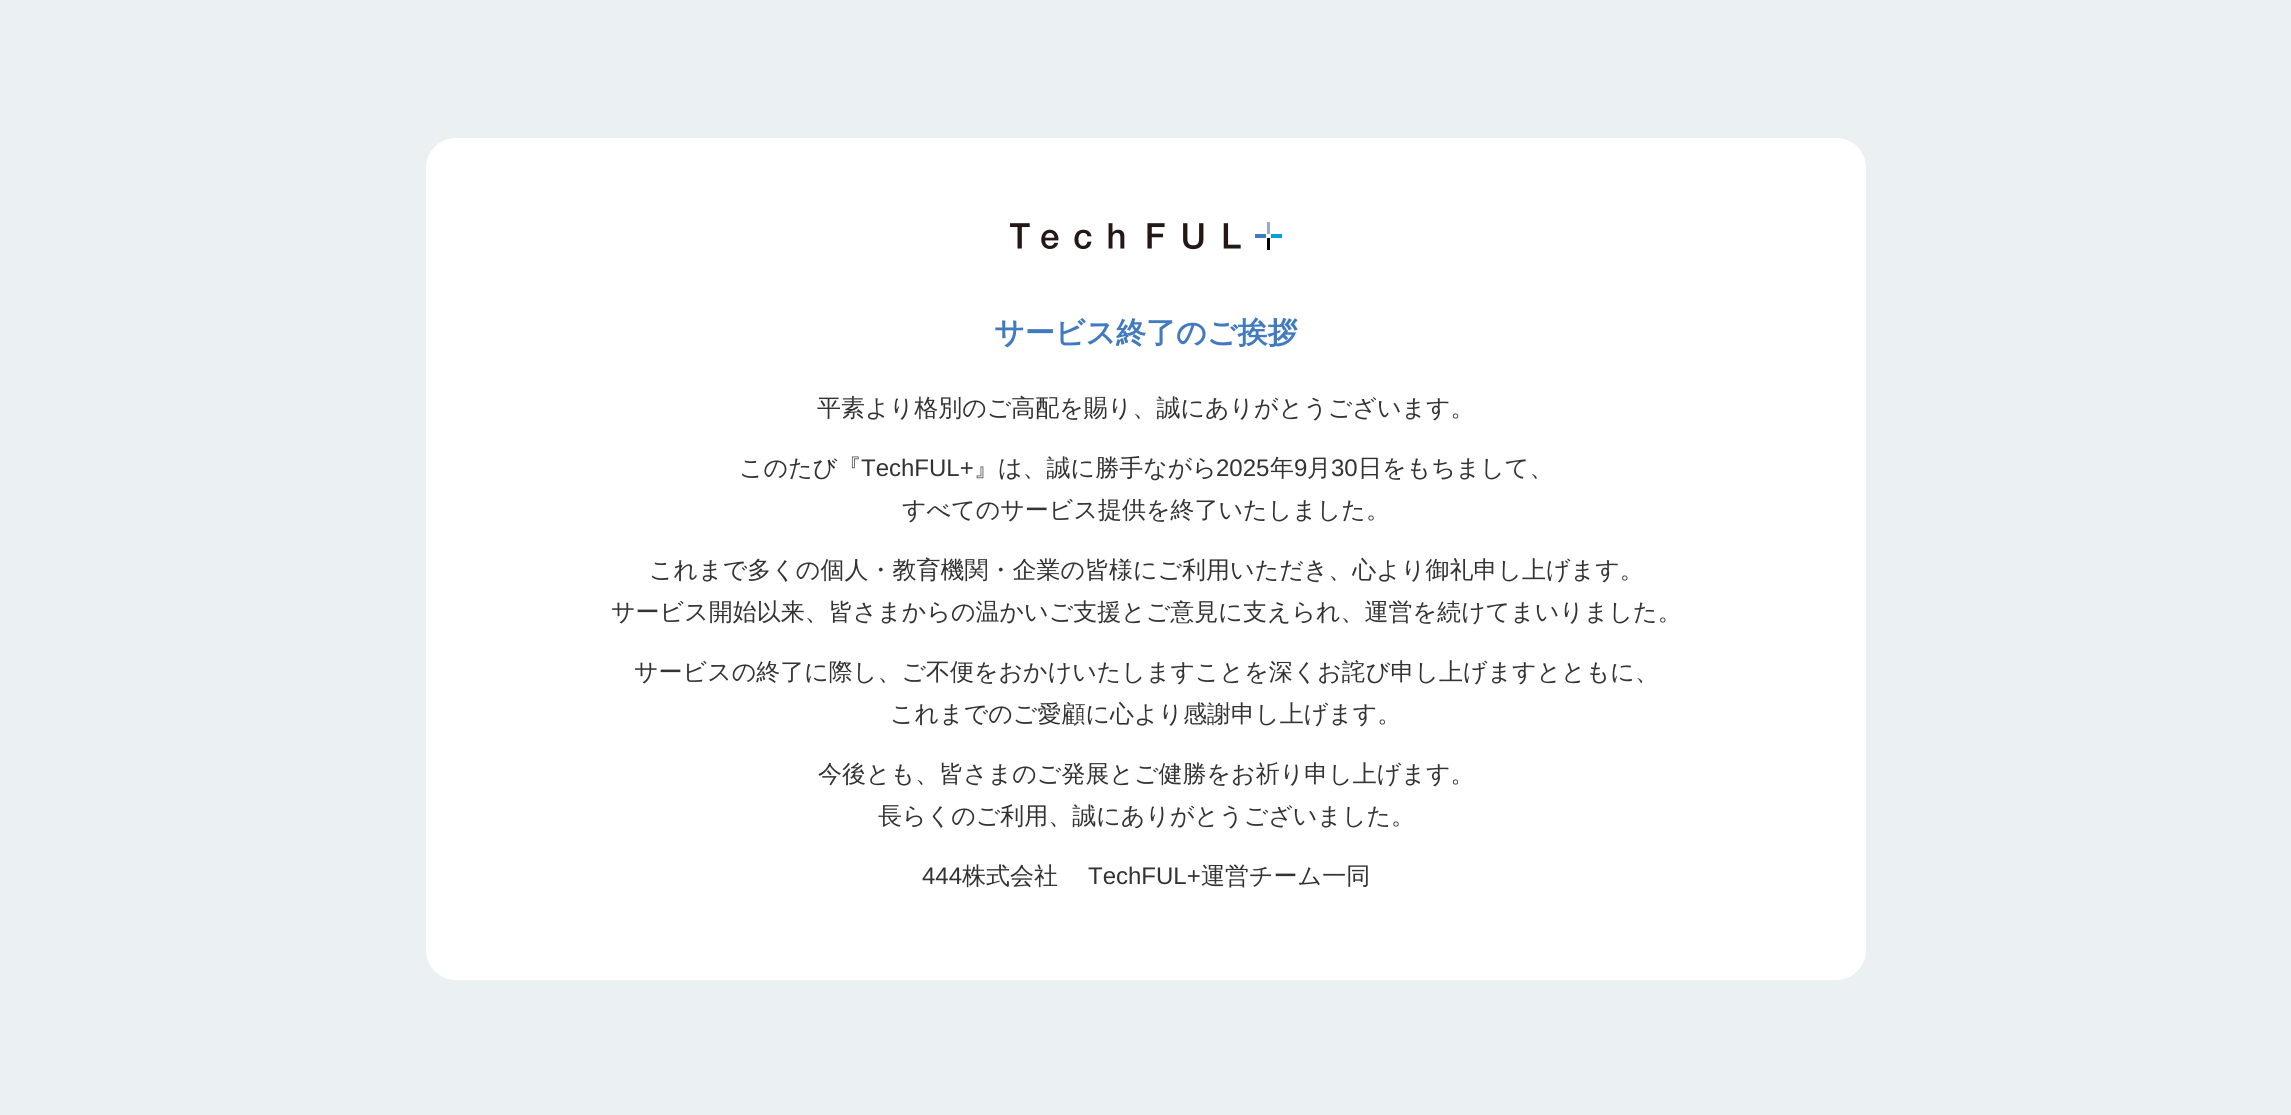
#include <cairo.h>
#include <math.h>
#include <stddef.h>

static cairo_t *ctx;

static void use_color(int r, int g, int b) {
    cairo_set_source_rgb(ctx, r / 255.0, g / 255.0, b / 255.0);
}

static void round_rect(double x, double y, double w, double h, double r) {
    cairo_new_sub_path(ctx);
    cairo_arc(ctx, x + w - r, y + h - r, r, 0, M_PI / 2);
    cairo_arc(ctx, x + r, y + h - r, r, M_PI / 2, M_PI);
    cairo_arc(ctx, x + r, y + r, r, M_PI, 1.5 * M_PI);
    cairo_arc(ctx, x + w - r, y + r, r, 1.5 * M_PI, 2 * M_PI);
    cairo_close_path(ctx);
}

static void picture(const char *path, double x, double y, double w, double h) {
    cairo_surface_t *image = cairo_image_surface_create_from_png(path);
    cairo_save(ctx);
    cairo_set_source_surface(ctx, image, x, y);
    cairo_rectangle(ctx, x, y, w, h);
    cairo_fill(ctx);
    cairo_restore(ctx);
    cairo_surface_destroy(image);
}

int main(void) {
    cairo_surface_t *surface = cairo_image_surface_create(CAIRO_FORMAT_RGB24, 2291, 1115);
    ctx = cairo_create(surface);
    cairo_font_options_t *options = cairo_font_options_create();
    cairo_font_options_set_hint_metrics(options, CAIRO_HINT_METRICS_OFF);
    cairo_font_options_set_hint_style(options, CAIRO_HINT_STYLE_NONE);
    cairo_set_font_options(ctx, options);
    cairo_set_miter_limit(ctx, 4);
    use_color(235, 240, 243);
    cairo_paint(ctx);
    use_color(255, 255, 255);
    round_rect(426, 138, 1440, 842, 30);
    cairo_fill(ctx);
    picture("img1.png", 1010, 222, 272, 28);
    cairo_select_font_face(ctx, "WenQuanYi Zen Hei", CAIRO_FONT_SLANT_NORMAL, CAIRO_FONT_WEIGHT_BOLD);
    cairo_set_font_size(ctx, 30);
    use_color(65, 122, 190);
    cairo_move_to(ctx, 994, 343);
    cairo_show_text(ctx, "サービス終了のご挨拶");
    cairo_select_font_face(ctx, "WenQuanYi Zen Hei Medium", CAIRO_FONT_SLANT_NORMAL, CAIRO_FONT_WEIGHT_NORMAL);
    cairo_set_font_size(ctx, 24);
    use_color(51, 51, 51);
    cairo_move_to(ctx, 817, 416);
    cairo_show_text(ctx, "平素より格別のご高配を賜り、誠にありがとうございます。");
    cairo_move_to(ctx, 739, 476);
    cairo_show_text(ctx, "このたび『");
    cairo_select_font_face(ctx, "Liberation Sans", CAIRO_FONT_SLANT_NORMAL, CAIRO_FONT_WEIGHT_NORMAL);
    cairo_move_to(ctx, 861, 476);
    cairo_show_text(ctx, "TechFUL+");
    cairo_select_font_face(ctx, "WenQuanYi Zen Hei Medium", CAIRO_FONT_SLANT_NORMAL, CAIRO_FONT_WEIGHT_NORMAL);
    cairo_move_to(ctx, 974, 476);
    cairo_show_text(ctx, "』は、誠に勝手ながら");
    cairo_select_font_face(ctx, "Liberation Sans", CAIRO_FONT_SLANT_NORMAL, CAIRO_FONT_WEIGHT_NORMAL);
    cairo_move_to(ctx, 1216, 476);
    cairo_show_text(ctx, "2025");
    cairo_select_font_face(ctx, "WenQuanYi Zen Hei Medium", CAIRO_FONT_SLANT_NORMAL, CAIRO_FONT_WEIGHT_NORMAL);
    cairo_move_to(ctx, 1270, 476);
    cairo_show_text(ctx, "年");
    cairo_select_font_face(ctx, "Liberation Sans", CAIRO_FONT_SLANT_NORMAL, CAIRO_FONT_WEIGHT_NORMAL);
    cairo_move_to(ctx, 1294, 476);
    cairo_show_text(ctx, "9");
    cairo_select_font_face(ctx, "WenQuanYi Zen Hei Medium", CAIRO_FONT_SLANT_NORMAL, CAIRO_FONT_WEIGHT_NORMAL);
    cairo_move_to(ctx, 1307, 476);
    cairo_show_text(ctx, "月");
    cairo_select_font_face(ctx, "Liberation Sans", CAIRO_FONT_SLANT_NORMAL, CAIRO_FONT_WEIGHT_NORMAL);
    cairo_move_to(ctx, 1331, 476);
    cairo_show_text(ctx, "30");
    cairo_select_font_face(ctx, "WenQuanYi Zen Hei Medium", CAIRO_FONT_SLANT_NORMAL, CAIRO_FONT_WEIGHT_NORMAL);
    cairo_move_to(ctx, 1358, 476);
    cairo_show_text(ctx, "日をもちまして、");
    cairo_move_to(ctx, 902, 518);
    cairo_show_text(ctx, "すべてのサービス提供を終了いたしました。");
    cairo_move_to(ctx, 649, 578);
    cairo_show_text(ctx, "これまで多くの個人・教育機関・企業の皆様にご利用いただき、心より御礼申し上げます。");
    cairo_move_to(ctx, 611, 620);
    cairo_show_text(ctx, "サービス開始以来、皆さまからの温かいご支援とご意見に支えられ、運営を続けてまいりました。");
    cairo_move_to(ctx, 634, 680);
    cairo_show_text(ctx, "サービスの終了に際し、ご不便をおかけいたしますことを深くお詫び申し上げますとともに、");
    cairo_move_to(ctx, 890, 722);
    cairo_show_text(ctx, "これまでのご愛顧に心より感謝申し上げます。");
    cairo_move_to(ctx, 818, 782);
    cairo_show_text(ctx, "今後とも、皆さまのご発展とご健勝をお祈り申し上げます。");
    cairo_move_to(ctx, 878, 824);
    cairo_show_text(ctx, "長らくのご利用、誠にありがとうございました。");
    cairo_select_font_face(ctx, "Liberation Sans", CAIRO_FONT_SLANT_NORMAL, CAIRO_FONT_WEIGHT_NORMAL);
    cairo_move_to(ctx, 922, 884);
    cairo_show_text(ctx, "444");
    cairo_select_font_face(ctx, "WenQuanYi Zen Hei Medium", CAIRO_FONT_SLANT_NORMAL, CAIRO_FONT_WEIGHT_NORMAL);
    cairo_move_to(ctx, 962, 884);
    cairo_show_text(ctx, "株式会社");
    cairo_select_font_face(ctx, "Liberation Sans", CAIRO_FONT_SLANT_NORMAL, CAIRO_FONT_WEIGHT_NORMAL);
    cairo_move_to(ctx, 1088, 884);
    cairo_show_text(ctx, "TechFUL+");
    cairo_select_font_face(ctx, "WenQuanYi Zen Hei Medium", CAIRO_FONT_SLANT_NORMAL, CAIRO_FONT_WEIGHT_NORMAL);
    cairo_move_to(ctx, 1201, 884);
    cairo_show_text(ctx, "運営チーム一同");
    cairo_surface_write_to_png(surface, "result.png");
    cairo_font_options_destroy(options);
    cairo_destroy(ctx);
    cairo_surface_destroy(surface);
    return 0;
}
